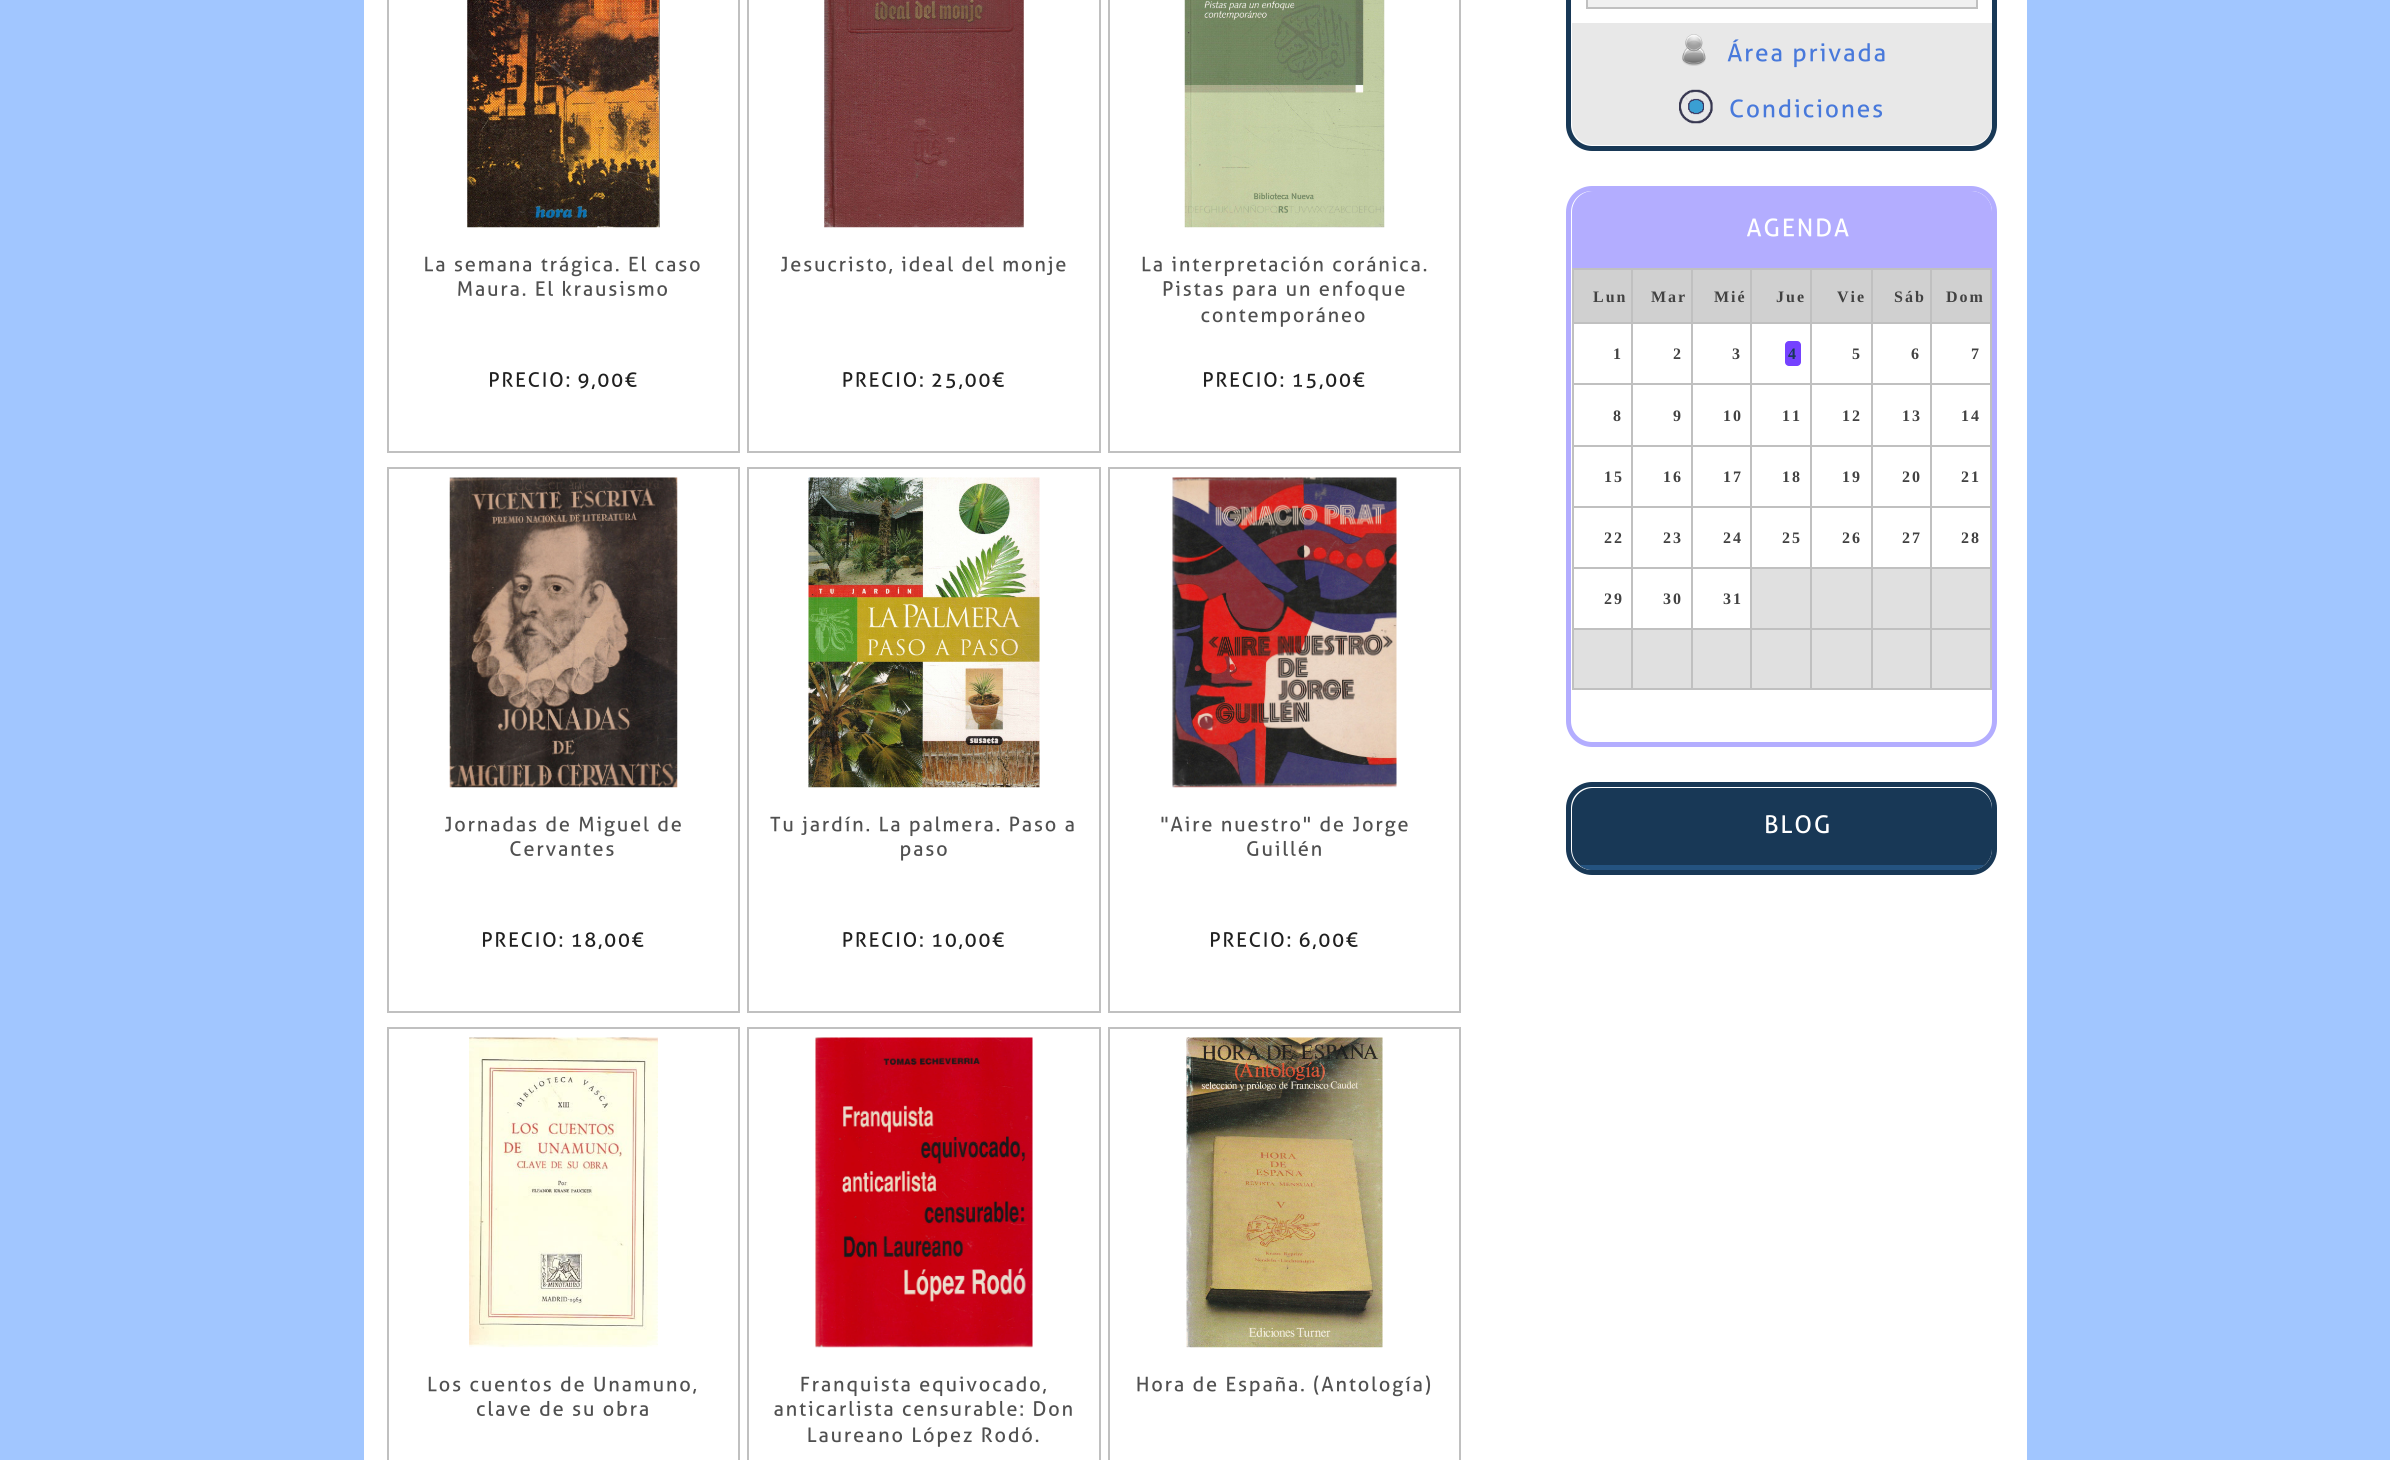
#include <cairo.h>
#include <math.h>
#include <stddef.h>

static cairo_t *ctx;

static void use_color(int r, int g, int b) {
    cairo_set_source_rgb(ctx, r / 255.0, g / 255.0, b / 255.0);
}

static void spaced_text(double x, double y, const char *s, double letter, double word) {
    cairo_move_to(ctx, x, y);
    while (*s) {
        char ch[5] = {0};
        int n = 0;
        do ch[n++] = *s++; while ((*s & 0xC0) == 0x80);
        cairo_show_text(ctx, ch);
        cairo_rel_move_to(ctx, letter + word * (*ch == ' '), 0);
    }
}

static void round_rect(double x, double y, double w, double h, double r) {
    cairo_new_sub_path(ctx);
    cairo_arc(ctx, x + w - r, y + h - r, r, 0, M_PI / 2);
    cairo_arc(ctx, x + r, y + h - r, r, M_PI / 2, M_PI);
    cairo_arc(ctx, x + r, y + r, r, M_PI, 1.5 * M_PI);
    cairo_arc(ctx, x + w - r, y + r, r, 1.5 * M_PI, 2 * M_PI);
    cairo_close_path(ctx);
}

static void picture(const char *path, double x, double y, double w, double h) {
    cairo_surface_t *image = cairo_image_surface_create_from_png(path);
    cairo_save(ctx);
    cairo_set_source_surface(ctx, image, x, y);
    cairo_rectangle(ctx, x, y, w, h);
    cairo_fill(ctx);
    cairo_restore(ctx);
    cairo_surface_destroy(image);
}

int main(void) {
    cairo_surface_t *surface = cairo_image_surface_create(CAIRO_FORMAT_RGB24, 2390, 1460);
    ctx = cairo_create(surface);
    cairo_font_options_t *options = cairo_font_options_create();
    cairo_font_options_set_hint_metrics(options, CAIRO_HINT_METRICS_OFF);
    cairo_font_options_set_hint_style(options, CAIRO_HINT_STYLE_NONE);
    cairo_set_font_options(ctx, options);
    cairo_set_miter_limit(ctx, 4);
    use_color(161, 198, 255);
    cairo_paint(ctx);
    use_color(255, 255, 255);
    cairo_rectangle(ctx, 364, 0, 1663, 1460);
    cairo_fill(ctx);
    cairo_rectangle(ctx, 388, -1, 351, 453);
    use_color(192, 192, 192);
    cairo_stroke(ctx);
    picture("img1.png", 467, 0, 193, 228);
    picture("img2.png", 425, 256, 275, 21);
    picture("img3.png", 458, 280, 209, 16);
    picture("img4.png", 490, 372, 80, 15);
    picture("img5.png", 578, 372, 59, 18);
    cairo_rectangle(ctx, 748, -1, 352, 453);
    cairo_stroke(ctx);
    picture("img6.png", 824, 0, 200, 228);
    picture("img7.png", 781, 256, 285, 19);
    picture("img8.png", 843, 372, 80, 15);
    picture("img9.png", 932, 372, 72, 18);
    cairo_rectangle(ctx, 1109, -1, 351, 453);
    cairo_stroke(ctx);
    picture("img10.png", 1184, 0, 201, 228);
    picture("img11.png", 1142, 256, 285, 21);
    picture("img12.png", 1163, 280, 242, 21);
    picture("img13.png", 1201, 307, 164, 20);
    picture("img4.png", 1204, 372, 80, 15);
    picture("img14.png", 1293, 372, 72, 18);
    cairo_rectangle(ctx, 388, 468, 351, 544);
    cairo_stroke(ctx);
    picture("img15.png", 449, 477, 229, 311);
    picture("img16.png", 445, 816, 236, 21);
    picture("img17.png", 510, 841, 104, 15);
    picture("img4.png", 483, 932, 80, 15);
    picture("img18.png", 572, 932, 72, 18);
    cairo_rectangle(ctx, 748, 468, 352, 544);
    cairo_stroke(ctx);
    picture("img19.png", 808, 477, 232, 311);
    picture("img20.png", 770, 816, 304, 21);
    picture("img21.png", 901, 845, 46, 16);
    picture("img8.png", 843, 932, 80, 15);
    picture("img22.png", 933, 932, 71, 18);
    cairo_rectangle(ctx, 1109, 468, 351, 544);
    cairo_stroke(ctx);
    picture("img23.png", 1172, 477, 225, 311);
    picture("img24.png", 1161, 816, 247, 21);
    picture("img25.png", 1247, 840, 74, 16);
    picture("img4.png", 1211, 932, 80, 15);
    picture("img26.png", 1299, 932, 59, 18);
    cairo_rectangle(ctx, 388, 1028, 351, 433);
    cairo_stroke(ctx);
    picture("img27.png", 469, 1037, 189, 311);
    picture("img28.png", 428, 1376, 269, 18);
    picture("img29.png", 477, 1400, 171, 16);
    cairo_rectangle(ctx, 748, 1028, 352, 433);
    cairo_stroke(ctx);
    picture("img30.png", 815, 1037, 218, 311);
    picture("img31.png", 801, 1376, 245, 21);
    picture("img32.png", 774, 1400, 298, 16);
    picture("img33.png", 808, 1427, 231, 20);
    cairo_rectangle(ctx, 1109, 1028, 351, 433);
    cairo_stroke(ctx);
    picture("img34.png", 1186, 1037, 197, 311);
    picture("img35.png", 1137, 1375, 294, 22);
    round_rect(1568.5, -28.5, 426, 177, 23.5);
    use_color(24, 56, 86);
    cairo_set_line_width(ctx, 5);
    cairo_stroke(ctx);
    use_color(240, 240, 240);
    cairo_rectangle(ctx, 1588, 0, 388, 7);
    cairo_fill(ctx);
    use_color(192, 192, 192);
    cairo_rectangle(ctx, 1976, 0, 2, 9);
    cairo_fill(ctx);
    cairo_rectangle(ctx, 1586, 7, 392, 2);
    cairo_fill(ctx);
    cairo_rectangle(ctx, 1586, 0, 2, 9);
    cairo_fill(ctx);
    use_color(232, 232, 232);
    cairo_rectangle(ctx, 1572, 23, 420, 56);
    cairo_fill(ctx);
    picture("img36.png", 1682, 34, 24, 32);
    picture("img37.png", 1727, 39, 158, 29);
    cairo_new_path(ctx);
    cairo_move_to(ctx, 1572, 79);
    cairo_line_to(ctx, 1992, 79);
    cairo_line_to(ctx, 1992, 124);
    cairo_curve_to(ctx, 1992, 135.5, 1982.5, 145, 1971, 145);
    cairo_line_to(ctx, 1593, 145);
    cairo_curve_to(ctx, 1581.5, 145, 1572, 135.5, 1572, 124);
    cairo_close_path(ctx);
    cairo_fill(ctx);
    picture("img38.png", 1679, 89, 34, 35);
    picture("img39.png", 1730, 99, 153, 19);
    round_rect(1568.5, 188.5, 426, 556, 23.5);
    use_color(179, 173, 255);
    cairo_stroke(ctx);
    cairo_new_path(ctx);
    cairo_move_to(ctx, 1593, 191);
    cairo_line_to(ctx, 1971, 191);
    cairo_curve_to(ctx, 1982.5, 191, 1992, 200.5, 1992, 212);
    cairo_line_to(ctx, 1992, 268);
    cairo_line_to(ctx, 1572, 268);
    cairo_line_to(ctx, 1572, 212);
    cairo_curve_to(ctx, 1572, 200.5, 1581.5, 191, 1593, 191);
    cairo_close_path(ctx);
    cairo_fill(ctx);
    picture("img40.png", 1747, 218, 102, 19);
    use_color(208, 208, 208);
    cairo_rectangle(ctx, 1574, 270, 57, 52);
    cairo_fill(ctx);
    use_color(192, 192, 192);
    cairo_rectangle(ctx, 1930, 268, 62, 2);
    cairo_fill(ctx);
    cairo_rectangle(ctx, 1930, 322, 62, 2);
    cairo_fill(ctx);
    cairo_rectangle(ctx, 1930, 383, 62, 2);
    cairo_fill(ctx);
    cairo_rectangle(ctx, 1930, 445, 62, 2);
    cairo_fill(ctx);
    cairo_rectangle(ctx, 1930, 506, 62, 2);
    cairo_fill(ctx);
    cairo_rectangle(ctx, 1930, 567, 62, 2);
    cairo_fill(ctx);
    cairo_rectangle(ctx, 1930, 628, 62, 2);
    cairo_fill(ctx);
    cairo_rectangle(ctx, 1990, 628, 2, 62);
    cairo_fill(ctx);
    cairo_rectangle(ctx, 1930, 688, 62, 2);
    cairo_fill(ctx);
    cairo_rectangle(ctx, 1930, 628, 2, 62);
    cairo_fill(ctx);
    cairo_rectangle(ctx, 1871, 628, 61, 2);
    cairo_fill(ctx);
    cairo_rectangle(ctx, 1930, 567, 2, 63);
    cairo_fill(ctx);
    cairo_rectangle(ctx, 1871, 567, 61, 2);
    cairo_fill(ctx);
    cairo_rectangle(ctx, 1930, 506, 2, 63);
    cairo_fill(ctx);
    cairo_rectangle(ctx, 1871, 506, 61, 2);
    cairo_fill(ctx);
    cairo_rectangle(ctx, 1930, 445, 2, 63);
    cairo_fill(ctx);
    cairo_rectangle(ctx, 1871, 445, 61, 2);
    cairo_fill(ctx);
    cairo_rectangle(ctx, 1930, 383, 2, 63);
    cairo_fill(ctx);
    cairo_rectangle(ctx, 1871, 383, 61, 2);
    cairo_fill(ctx);
    cairo_rectangle(ctx, 1930, 322, 2, 63);
    cairo_fill(ctx);
    cairo_rectangle(ctx, 1871, 322, 61, 2);
    cairo_fill(ctx);
    cairo_rectangle(ctx, 1930, 268, 2, 56);
    cairo_fill(ctx);
    cairo_rectangle(ctx, 1871, 268, 61, 2);
    cairo_fill(ctx);
    cairo_rectangle(ctx, 1871, 688, 61, 2);
    cairo_fill(ctx);
    cairo_rectangle(ctx, 1871, 628, 2, 62);
    cairo_fill(ctx);
    cairo_rectangle(ctx, 1810, 628, 63, 2);
    cairo_fill(ctx);
    cairo_rectangle(ctx, 1871, 567, 2, 63);
    cairo_fill(ctx);
    cairo_rectangle(ctx, 1810, 567, 63, 2);
    cairo_fill(ctx);
    cairo_rectangle(ctx, 1871, 506, 2, 63);
    cairo_fill(ctx);
    cairo_rectangle(ctx, 1810, 506, 63, 2);
    cairo_fill(ctx);
    cairo_rectangle(ctx, 1871, 445, 2, 63);
    cairo_fill(ctx);
    cairo_rectangle(ctx, 1810, 445, 63, 2);
    cairo_fill(ctx);
    cairo_rectangle(ctx, 1871, 383, 2, 63);
    cairo_fill(ctx);
    cairo_rectangle(ctx, 1810, 383, 63, 2);
    cairo_fill(ctx);
    cairo_rectangle(ctx, 1871, 322, 2, 63);
    cairo_fill(ctx);
    cairo_rectangle(ctx, 1810, 322, 63, 2);
    cairo_fill(ctx);
    cairo_rectangle(ctx, 1871, 268, 2, 56);
    cairo_fill(ctx);
    cairo_rectangle(ctx, 1810, 268, 63, 2);
    cairo_fill(ctx);
    cairo_rectangle(ctx, 1810, 688, 63, 2);
    cairo_fill(ctx);
    cairo_rectangle(ctx, 1810, 628, 2, 62);
    cairo_fill(ctx);
    cairo_rectangle(ctx, 1750, 628, 61, 2);
    cairo_fill(ctx);
    cairo_rectangle(ctx, 1810, 567, 2, 63);
    cairo_fill(ctx);
    cairo_rectangle(ctx, 1750, 567, 61, 2);
    cairo_fill(ctx);
    cairo_rectangle(ctx, 1810, 506, 2, 63);
    cairo_fill(ctx);
    cairo_rectangle(ctx, 1750, 506, 61, 2);
    cairo_fill(ctx);
    cairo_rectangle(ctx, 1810, 445, 2, 63);
    cairo_fill(ctx);
    cairo_rectangle(ctx, 1750, 445, 61, 2);
    cairo_fill(ctx);
    cairo_rectangle(ctx, 1810, 383, 2, 63);
    cairo_fill(ctx);
    cairo_rectangle(ctx, 1750, 383, 61, 2);
    cairo_fill(ctx);
    cairo_rectangle(ctx, 1810, 322, 2, 63);
    cairo_fill(ctx);
    cairo_rectangle(ctx, 1750, 322, 61, 2);
    cairo_fill(ctx);
    cairo_rectangle(ctx, 1810, 268, 2, 56);
    cairo_fill(ctx);
    cairo_rectangle(ctx, 1750, 268, 61, 2);
    cairo_fill(ctx);
    cairo_rectangle(ctx, 1750, 688, 61, 2);
    cairo_fill(ctx);
    cairo_rectangle(ctx, 1750, 628, 2, 62);
    cairo_fill(ctx);
    cairo_rectangle(ctx, 1691, 628, 61, 2);
    cairo_fill(ctx);
    cairo_rectangle(ctx, 1750, 567, 2, 63);
    cairo_fill(ctx);
    cairo_rectangle(ctx, 1691, 567, 61, 2);
    cairo_fill(ctx);
    cairo_rectangle(ctx, 1750, 506, 2, 63);
    cairo_fill(ctx);
    cairo_rectangle(ctx, 1691, 506, 61, 2);
    cairo_fill(ctx);
    cairo_rectangle(ctx, 1750, 445, 2, 63);
    cairo_fill(ctx);
    cairo_rectangle(ctx, 1691, 445, 61, 2);
    cairo_fill(ctx);
    cairo_rectangle(ctx, 1750, 383, 2, 63);
    cairo_fill(ctx);
    cairo_rectangle(ctx, 1691, 383, 61, 2);
    cairo_fill(ctx);
    cairo_rectangle(ctx, 1750, 322, 2, 63);
    cairo_fill(ctx);
    cairo_rectangle(ctx, 1691, 322, 61, 2);
    cairo_fill(ctx);
    cairo_rectangle(ctx, 1750, 268, 2, 56);
    cairo_fill(ctx);
    cairo_rectangle(ctx, 1691, 268, 61, 2);
    cairo_fill(ctx);
    cairo_rectangle(ctx, 1691, 688, 61, 2);
    cairo_fill(ctx);
    cairo_rectangle(ctx, 1691, 628, 2, 62);
    cairo_fill(ctx);
    cairo_rectangle(ctx, 1631, 628, 61, 2);
    cairo_fill(ctx);
    cairo_rectangle(ctx, 1691, 567, 2, 63);
    cairo_fill(ctx);
    cairo_rectangle(ctx, 1631, 567, 61, 2);
    cairo_fill(ctx);
    cairo_rectangle(ctx, 1691, 506, 2, 63);
    cairo_fill(ctx);
    cairo_rectangle(ctx, 1631, 506, 61, 2);
    cairo_fill(ctx);
    cairo_rectangle(ctx, 1691, 445, 2, 63);
    cairo_fill(ctx);
    cairo_rectangle(ctx, 1631, 445, 61, 2);
    cairo_fill(ctx);
    cairo_rectangle(ctx, 1691, 383, 2, 63);
    cairo_fill(ctx);
    cairo_rectangle(ctx, 1631, 383, 61, 2);
    cairo_fill(ctx);
    cairo_rectangle(ctx, 1691, 322, 2, 63);
    cairo_fill(ctx);
    cairo_rectangle(ctx, 1631, 322, 61, 2);
    cairo_fill(ctx);
    cairo_rectangle(ctx, 1691, 268, 2, 56);
    cairo_fill(ctx);
    cairo_rectangle(ctx, 1631, 268, 61, 2);
    cairo_fill(ctx);
    cairo_rectangle(ctx, 1631, 688, 61, 2);
    cairo_fill(ctx);
    cairo_rectangle(ctx, 1631, 628, 2, 62);
    cairo_fill(ctx);
    cairo_rectangle(ctx, 1572, 628, 61, 2);
    cairo_fill(ctx);
    cairo_rectangle(ctx, 1631, 567, 2, 63);
    cairo_fill(ctx);
    cairo_rectangle(ctx, 1572, 567, 61, 2);
    cairo_fill(ctx);
    cairo_rectangle(ctx, 1631, 506, 2, 63);
    cairo_fill(ctx);
    cairo_rectangle(ctx, 1572, 506, 61, 2);
    cairo_fill(ctx);
    cairo_rectangle(ctx, 1631, 445, 2, 63);
    cairo_fill(ctx);
    cairo_rectangle(ctx, 1572, 445, 61, 2);
    cairo_fill(ctx);
    cairo_rectangle(ctx, 1631, 383, 2, 63);
    cairo_fill(ctx);
    cairo_rectangle(ctx, 1572, 383, 61, 2);
    cairo_fill(ctx);
    cairo_rectangle(ctx, 1631, 322, 2, 63);
    cairo_fill(ctx);
    cairo_rectangle(ctx, 1572, 322, 61, 2);
    cairo_fill(ctx);
    cairo_rectangle(ctx, 1631, 268, 2, 56);
    cairo_fill(ctx);
    cairo_rectangle(ctx, 1572, 268, 61, 2);
    cairo_fill(ctx);
    cairo_rectangle(ctx, 1572, 688, 61, 2);
    cairo_fill(ctx);
    cairo_rectangle(ctx, 1572, 628, 2, 62);
    cairo_fill(ctx);
    cairo_rectangle(ctx, 1572, 567, 2, 63);
    cairo_fill(ctx);
    cairo_rectangle(ctx, 1572, 506, 2, 63);
    cairo_fill(ctx);
    cairo_rectangle(ctx, 1572, 445, 2, 63);
    cairo_fill(ctx);
    cairo_rectangle(ctx, 1572, 383, 2, 63);
    cairo_fill(ctx);
    cairo_rectangle(ctx, 1572, 322, 2, 63);
    cairo_fill(ctx);
    cairo_rectangle(ctx, 1572, 268, 2, 56);
    cairo_fill(ctx);
    cairo_select_font_face(ctx, "Liberation Serif", CAIRO_FONT_SLANT_NORMAL, CAIRO_FONT_WEIGHT_BOLD);
    cairo_set_font_size(ctx, 16);
    use_color(66, 66, 66);
    spaced_text(1593, 302, "Lun", 2, 0);
    use_color(208, 208, 208);
    cairo_rectangle(ctx, 1633, 270, 58, 52);
    cairo_fill(ctx);
    use_color(66, 66, 66);
    spaced_text(1651, 302, "Mar", 2, 0);
    use_color(208, 208, 208);
    cairo_rectangle(ctx, 1693, 270, 57, 52);
    cairo_fill(ctx);
    use_color(66, 66, 66);
    spaced_text(1714, 302, "Mié", 2, 0);
    use_color(208, 208, 208);
    cairo_rectangle(ctx, 1752, 270, 58, 52);
    cairo_fill(ctx);
    use_color(66, 66, 66);
    spaced_text(1776, 302, "Jue", 2, 0);
    use_color(208, 208, 208);
    cairo_rectangle(ctx, 1812, 270, 59, 52);
    cairo_fill(ctx);
    use_color(66, 66, 66);
    spaced_text(1837, 302, "Vie", 2, 0);
    use_color(208, 208, 208);
    cairo_rectangle(ctx, 1873, 270, 57, 52);
    cairo_fill(ctx);
    use_color(66, 66, 66);
    spaced_text(1894, 302, "Sáb", 2, 0);
    use_color(208, 208, 208);
    cairo_rectangle(ctx, 1932, 270, 58, 52);
    cairo_fill(ctx);
    use_color(192, 192, 192);
    cairo_rectangle(ctx, 1990, 567, 2, 63);
    cairo_fill(ctx);
    cairo_rectangle(ctx, 1990, 506, 2, 63);
    cairo_fill(ctx);
    cairo_rectangle(ctx, 1990, 445, 2, 63);
    cairo_fill(ctx);
    cairo_rectangle(ctx, 1990, 383, 2, 63);
    cairo_fill(ctx);
    cairo_rectangle(ctx, 1990, 322, 2, 63);
    cairo_fill(ctx);
    cairo_rectangle(ctx, 1990, 268, 2, 56);
    cairo_fill(ctx);
    use_color(66, 66, 66);
    spaced_text(1946, 302, "Dom", 2, 0);
    spaced_text(1613, 359, "1", 2, 0);
    spaced_text(1673, 359, "2", 2, 0);
    spaced_text(1732, 359, "3", 2, 0);
    use_color(117, 66, 255);
    round_rect(1785, 341, 16, 25, 4);
    cairo_fill(ctx);
    use_color(24, 56, 86);
    spaced_text(1788, 359, "4", 2, 0);
    use_color(66, 66, 66);
    spaced_text(1852, 359, "5", 2, 0);
    spaced_text(1911, 359, "6", 2, 0);
    spaced_text(1971, 359, "7", 2, 0);
    spaced_text(1613, 421, "8", 2, 0);
    spaced_text(1673, 421, "9", 2, 0);
    spaced_text(1723, 421, "10", 2, 0);
    spaced_text(1782, 421, "11", 2, 0);
    spaced_text(1842, 421, "12", 2, 0);
    spaced_text(1902, 421, "13", 2, 0);
    spaced_text(1961, 421, "14", 2, 0);
    spaced_text(1604, 482, "15", 2, 0);
    spaced_text(1663, 482, "16", 2, 0);
    spaced_text(1723, 482, "17", 2, 0);
    spaced_text(1782, 482, "18", 2, 0);
    spaced_text(1842, 482, "19", 2, 0);
    spaced_text(1902, 482, "20", 2, 0);
    spaced_text(1961, 482, "21", 2, 0);
    spaced_text(1604, 543, "22", 2, 0);
    spaced_text(1663, 543, "23", 2, 0);
    spaced_text(1723, 543, "24", 2, 0);
    spaced_text(1782, 543, "25", 2, 0);
    spaced_text(1842, 543, "26", 2, 0);
    spaced_text(1902, 543, "27", 2, 0);
    spaced_text(1961, 543, "28", 2, 0);
    spaced_text(1604, 604, "29", 2, 0);
    spaced_text(1663, 604, "30", 2, 0);
    spaced_text(1723, 604, "31", 2, 0);
    use_color(224, 224, 224);
    cairo_rectangle(ctx, 1752, 569, 58, 59);
    cairo_fill(ctx);
    cairo_rectangle(ctx, 1812, 569, 59, 59);
    cairo_fill(ctx);
    cairo_rectangle(ctx, 1873, 569, 57, 59);
    cairo_fill(ctx);
    cairo_rectangle(ctx, 1932, 569, 58, 59);
    cairo_fill(ctx);
    cairo_rectangle(ctx, 1574, 630, 57, 58);
    cairo_fill(ctx);
    cairo_rectangle(ctx, 1633, 630, 58, 58);
    cairo_fill(ctx);
    cairo_rectangle(ctx, 1693, 630, 57, 58);
    cairo_fill(ctx);
    cairo_rectangle(ctx, 1752, 630, 58, 58);
    cairo_fill(ctx);
    cairo_rectangle(ctx, 1812, 630, 59, 58);
    cairo_fill(ctx);
    cairo_rectangle(ctx, 1873, 630, 57, 58);
    cairo_fill(ctx);
    cairo_rectangle(ctx, 1932, 630, 58, 58);
    cairo_fill(ctx);
    round_rect(1568.5, 784.5, 426, 88, 23.5);
    use_color(24, 56, 86);
    cairo_stroke(ctx);
    round_rect(1572, 788, 420, 82, 21);
    cairo_fill(ctx);
    cairo_save(ctx);
    round_rect(1572, 788, 420, 82, 21);
    cairo_clip(ctx);
    use_color(36, 83, 128);
    cairo_rectangle(ctx, 1572, 865, 420, 5);
    cairo_fill(ctx);
    cairo_restore(ctx);
    picture("img41.png", 1766, 815, 63, 19);
    cairo_surface_write_to_png(surface, "result.png");
    cairo_font_options_destroy(options);
    cairo_destroy(ctx);
    cairo_surface_destroy(surface);
    return 0;
}
